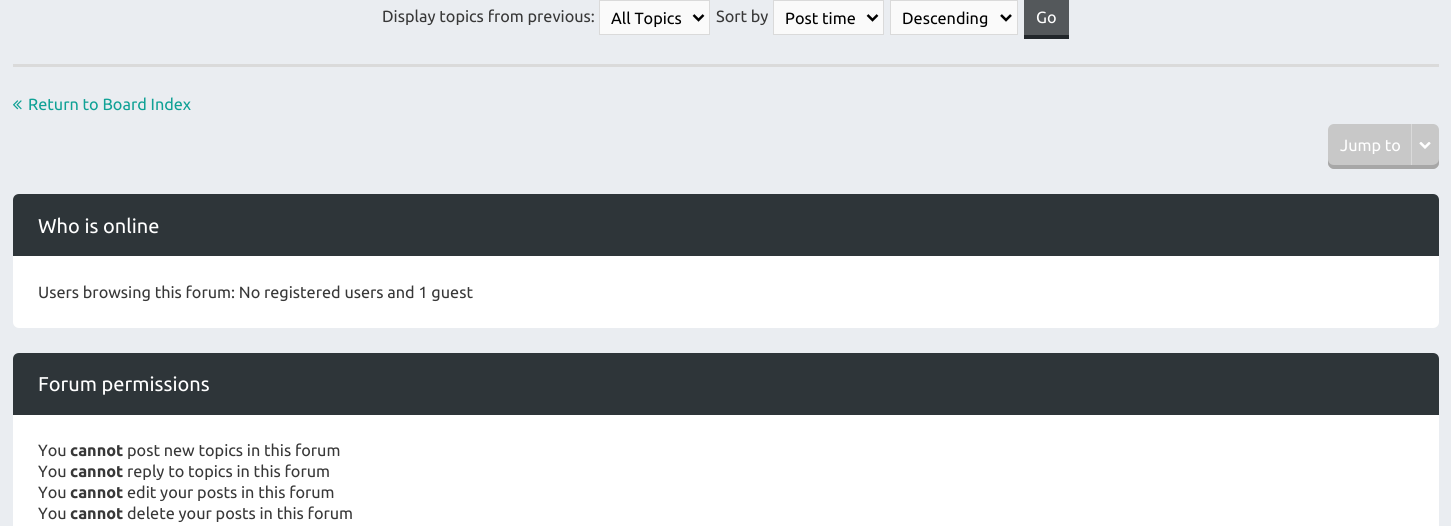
#include <cairo.h>
#include <math.h>
#include <stddef.h>

static cairo_t *ctx;

static void use_color(int r, int g, int b) {
    cairo_set_source_rgb(ctx, r / 255.0, g / 255.0, b / 255.0);
}

static void round_rect(double x, double y, double w, double h, double r) {
    cairo_new_sub_path(ctx);
    cairo_arc(ctx, x + w - r, y + h - r, r, 0, M_PI / 2);
    cairo_arc(ctx, x + r, y + h - r, r, M_PI / 2, M_PI);
    cairo_arc(ctx, x + r, y + r, r, M_PI, 1.5 * M_PI);
    cairo_arc(ctx, x + w - r, y + r, r, 1.5 * M_PI, 2 * M_PI);
    cairo_close_path(ctx);
}

static void picture(const char *path, double x, double y, double w, double h) {
    cairo_surface_t *image = cairo_image_surface_create_from_png(path);
    cairo_save(ctx);
    cairo_set_source_surface(ctx, image, x, y);
    cairo_rectangle(ctx, x, y, w, h);
    cairo_fill(ctx);
    cairo_restore(ctx);
    cairo_surface_destroy(image);
}

int main(void) {
    cairo_surface_t *surface = cairo_image_surface_create(CAIRO_FORMAT_RGB24, 1451, 526);
    ctx = cairo_create(surface);
    cairo_font_options_t *options = cairo_font_options_create();
    cairo_font_options_set_hint_metrics(options, CAIRO_HINT_METRICS_OFF);
    cairo_font_options_set_hint_style(options, CAIRO_HINT_STYLE_NONE);
    cairo_set_font_options(ctx, options);
    cairo_set_miter_limit(ctx, 4);
    use_color(234, 237, 241);
    cairo_paint(ctx);
    cairo_select_font_face(ctx, "Ubuntu", CAIRO_FONT_SLANT_NORMAL, CAIRO_FONT_WEIGHT_NORMAL);
    cairo_set_font_size(ctx, 16.25);
    use_color(56, 56, 56);
    cairo_move_to(ctx, 382, 22);
    cairo_show_text(ctx, "Display topics from previous:");
    use_color(250, 250, 250);
    cairo_rectangle(ctx, 599.5, 0.5, 110, 34);
    cairo_fill_preserve(ctx);
    use_color(218, 218, 218);
    cairo_set_line_width(ctx, 1);
    cairo_stroke(ctx);
    cairo_new_path(ctx);
    cairo_move_to(ctx, 693.5, 15);
    cairo_line_to(ctx, 698.5, 20);
    cairo_line_to(ctx, 703.5, 15);
    use_color(0, 0, 0);
    cairo_set_line_width(ctx, 2.5);
    cairo_stroke(ctx);
    cairo_move_to(ctx, 611, 24);
    cairo_show_text(ctx, "All Topics");
    use_color(56, 56, 56);
    cairo_move_to(ctx, 716, 22);
    cairo_show_text(ctx, "Sort by");
    use_color(250, 250, 250);
    cairo_rectangle(ctx, 773.5, 0.5, 110, 34);
    cairo_fill_preserve(ctx);
    use_color(218, 218, 218);
    cairo_set_line_width(ctx, 1);
    cairo_stroke(ctx);
    cairo_new_path(ctx);
    cairo_move_to(ctx, 867.5, 15);
    cairo_line_to(ctx, 872.5, 20);
    cairo_line_to(ctx, 877.5, 15);
    use_color(0, 0, 0);
    cairo_set_line_width(ctx, 2.5);
    cairo_stroke(ctx);
    cairo_move_to(ctx, 785, 24);
    cairo_show_text(ctx, "Post time");
    use_color(250, 250, 250);
    cairo_rectangle(ctx, 890.5, 0.5, 127, 34);
    cairo_fill_preserve(ctx);
    use_color(218, 218, 218);
    cairo_set_line_width(ctx, 1);
    cairo_stroke(ctx);
    cairo_new_path(ctx);
    cairo_move_to(ctx, 1001, 15);
    cairo_line_to(ctx, 1006, 20);
    cairo_line_to(ctx, 1011, 15);
    use_color(0, 0, 0);
    cairo_set_line_width(ctx, 2.5);
    cairo_stroke(ctx);
    cairo_move_to(ctx, 902, 24);
    cairo_show_text(ctx, "Descending");
    use_color(84, 88, 91);
    cairo_rectangle(ctx, 1024, 0, 45, 35);
    cairo_fill(ctx);
    use_color(33, 38, 42);
    cairo_rectangle(ctx, 1024, 35, 45, 4);
    cairo_fill(ctx);
    use_color(255, 255, 255);
    cairo_move_to(ctx, 1036, 23);
    cairo_show_text(ctx, "Go");
    use_color(218, 218, 218);
    cairo_rectangle(ctx, 13, 64, 1426, 3);
    cairo_fill(ctx);
    picture("img1.png", 13, 100, 9, 10);
    use_color(15, 161, 149);
    cairo_move_to(ctx, 28, 110);
    cairo_show_text(ctx, "Return to Board Index");
    use_color(200, 200, 200);
    round_rect(1328, 124, 111, 45, 6);
    cairo_fill(ctx);
    use_color(167, 167, 167);
    cairo_new_path(ctx);
    cairo_move_to(ctx, 1328, 159);
    cairo_line_to(ctx, 1328, 163);
    cairo_curve_to(ctx, 1328, 166, 1331, 169, 1334, 169);
    cairo_line_to(ctx, 1433, 169);
    cairo_curve_to(ctx, 1436, 169, 1439, 166, 1439, 163);
    cairo_line_to(ctx, 1439, 159);
    cairo_curve_to(ctx, 1439, 162, 1436, 165, 1432, 165);
    cairo_line_to(ctx, 1334, 165);
    cairo_curve_to(ctx, 1330, 165, 1328, 162, 1328, 159);
    cairo_close_path(ctx);
    cairo_fill(ctx);
    use_color(255, 255, 255);
    cairo_move_to(ctx, 1340, 151);
    cairo_show_text(ctx, "Jump to");
    use_color(218, 218, 218);
    cairo_rectangle(ctx, 1411, 124, 1, 41);
    cairo_fill(ctx);
    picture("img2.png", 1419, 142, 12, 7);
    use_color(255, 255, 255);
    round_rect(13, 194, 1426, 134, 6);
    cairo_fill(ctx);
    use_color(46, 53, 57);
    cairo_new_path(ctx);
    cairo_move_to(ctx, 19, 194);
    cairo_line_to(ctx, 1433, 194);
    cairo_curve_to(ctx, 1436.5, 194, 1439, 196.5, 1439, 200);
    cairo_line_to(ctx, 1439, 256);
    cairo_line_to(ctx, 13, 256);
    cairo_line_to(ctx, 13, 200);
    cairo_curve_to(ctx, 13, 196.5, 15.5, 194, 19, 194);
    cairo_close_path(ctx);
    cairo_fill(ctx);
    cairo_set_font_size(ctx, 20);
    use_color(255, 255, 255);
    cairo_move_to(ctx, 38, 233);
    cairo_show_text(ctx, "Who is online");
    cairo_set_font_size(ctx, 16.25);
    use_color(56, 56, 56);
    cairo_move_to(ctx, 38, 298);
    cairo_show_text(ctx, "Users browsing this forum: No registered users and 1 guest");
    use_color(255, 255, 255);
    round_rect(13, 353, 1426, 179, 6);
    cairo_fill(ctx);
    use_color(46, 53, 57);
    cairo_new_path(ctx);
    cairo_move_to(ctx, 19, 353);
    cairo_line_to(ctx, 1433, 353);
    cairo_curve_to(ctx, 1436.5, 353, 1439, 355.5, 1439, 359);
    cairo_line_to(ctx, 1439, 415);
    cairo_line_to(ctx, 13, 415);
    cairo_line_to(ctx, 13, 359);
    cairo_curve_to(ctx, 13, 355.5, 15.5, 353, 19, 353);
    cairo_close_path(ctx);
    cairo_fill(ctx);
    cairo_set_font_size(ctx, 20);
    use_color(255, 255, 255);
    cairo_move_to(ctx, 38, 391);
    cairo_show_text(ctx, "Forum permissions");
    cairo_set_font_size(ctx, 16.25);
    use_color(56, 56, 56);
    cairo_move_to(ctx, 38, 456);
    cairo_show_text(ctx, "You");
    cairo_select_font_face(ctx, "Ubuntu", CAIRO_FONT_SLANT_NORMAL, CAIRO_FONT_WEIGHT_BOLD);
    cairo_move_to(ctx, 70, 456);
    cairo_show_text(ctx, "cannot");
    cairo_select_font_face(ctx, "Ubuntu", CAIRO_FONT_SLANT_NORMAL, CAIRO_FONT_WEIGHT_NORMAL);
    cairo_move_to(ctx, 127, 456);
    cairo_show_text(ctx, "post new topics in this forum");
    cairo_move_to(ctx, 38, 477);
    cairo_show_text(ctx, "You");
    cairo_select_font_face(ctx, "Ubuntu", CAIRO_FONT_SLANT_NORMAL, CAIRO_FONT_WEIGHT_BOLD);
    cairo_move_to(ctx, 70, 477);
    cairo_show_text(ctx, "cannot");
    cairo_select_font_face(ctx, "Ubuntu", CAIRO_FONT_SLANT_NORMAL, CAIRO_FONT_WEIGHT_NORMAL);
    cairo_move_to(ctx, 127, 477);
    cairo_show_text(ctx, "reply to topics in this forum");
    cairo_move_to(ctx, 38, 498);
    cairo_show_text(ctx, "You");
    cairo_select_font_face(ctx, "Ubuntu", CAIRO_FONT_SLANT_NORMAL, CAIRO_FONT_WEIGHT_BOLD);
    cairo_move_to(ctx, 70, 498);
    cairo_show_text(ctx, "cannot");
    cairo_select_font_face(ctx, "Ubuntu", CAIRO_FONT_SLANT_NORMAL, CAIRO_FONT_WEIGHT_NORMAL);
    cairo_move_to(ctx, 127, 498);
    cairo_show_text(ctx, "edit your posts in this forum");
    cairo_move_to(ctx, 38, 519);
    cairo_show_text(ctx, "You");
    cairo_select_font_face(ctx, "Ubuntu", CAIRO_FONT_SLANT_NORMAL, CAIRO_FONT_WEIGHT_BOLD);
    cairo_move_to(ctx, 70, 519);
    cairo_show_text(ctx, "cannot");
    cairo_select_font_face(ctx, "Ubuntu", CAIRO_FONT_SLANT_NORMAL, CAIRO_FONT_WEIGHT_NORMAL);
    cairo_move_to(ctx, 127, 519);
    cairo_show_text(ctx, "delete your posts in this forum");
    cairo_surface_write_to_png(surface, "result.png");
    cairo_font_options_destroy(options);
    cairo_destroy(ctx);
    cairo_surface_destroy(surface);
    return 0;
}
